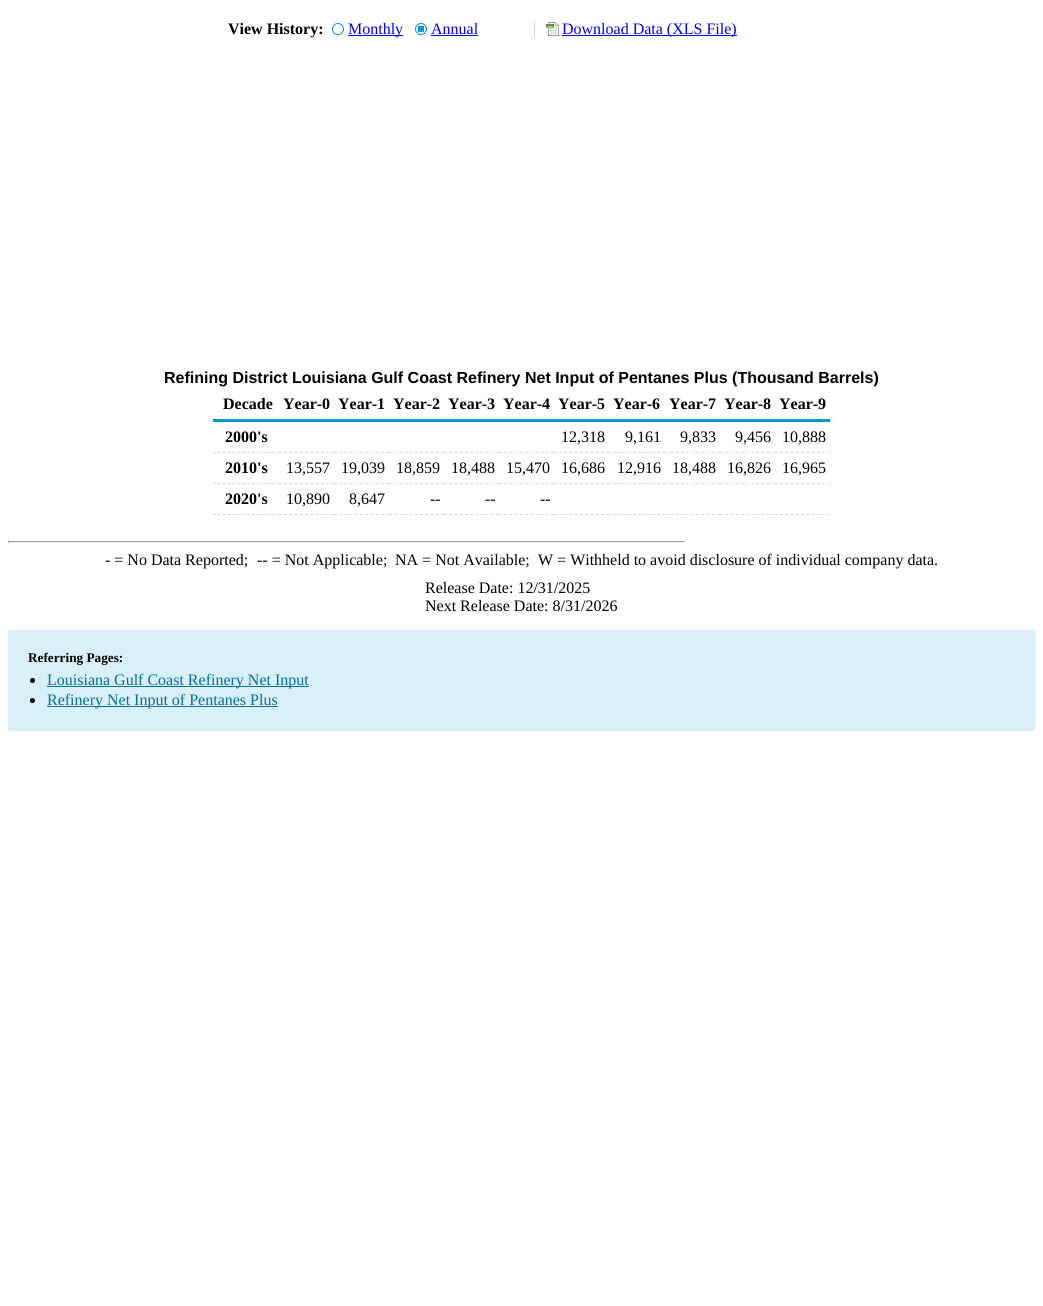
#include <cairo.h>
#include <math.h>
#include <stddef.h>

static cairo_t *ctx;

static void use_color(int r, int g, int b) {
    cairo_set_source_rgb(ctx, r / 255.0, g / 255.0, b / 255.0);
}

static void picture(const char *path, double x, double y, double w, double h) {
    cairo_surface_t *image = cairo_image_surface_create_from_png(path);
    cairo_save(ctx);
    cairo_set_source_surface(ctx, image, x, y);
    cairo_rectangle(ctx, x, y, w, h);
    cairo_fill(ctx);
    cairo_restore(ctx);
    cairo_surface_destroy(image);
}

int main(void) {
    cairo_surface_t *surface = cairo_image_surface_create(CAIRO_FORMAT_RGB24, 1043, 1306);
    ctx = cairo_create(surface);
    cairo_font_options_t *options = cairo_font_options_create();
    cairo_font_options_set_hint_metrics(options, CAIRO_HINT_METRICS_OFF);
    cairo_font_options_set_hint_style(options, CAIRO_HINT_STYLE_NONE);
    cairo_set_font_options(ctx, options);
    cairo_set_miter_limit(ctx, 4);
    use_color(255, 255, 255);
    cairo_paint(ctx);
    cairo_select_font_face(ctx, "Liberation Serif", CAIRO_FONT_SLANT_NORMAL, CAIRO_FONT_WEIGHT_BOLD);
    cairo_set_font_size(ctx, 16);
    use_color(0, 0, 0);
    cairo_move_to(ctx, 228, 34);
    cairo_show_text(ctx, "View History:");
    cairo_new_path(ctx);
    cairo_arc(ctx, 338, 29, 5.5, 0, 2 * M_PI);
    use_color(0, 150, 215);
    cairo_set_line_width(ctx, 1);
    cairo_stroke(ctx);
    use_color(0, 0, 238);
    cairo_rectangle(ctx, 348, 35, 55, 1);
    cairo_fill(ctx);
    cairo_select_font_face(ctx, "Liberation Serif", CAIRO_FONT_SLANT_NORMAL, CAIRO_FONT_WEIGHT_NORMAL);
    cairo_move_to(ctx, 348, 34);
    cairo_show_text(ctx, "Monthly");
    use_color(0, 150, 215);
    cairo_rectangle(ctx, 418, 26, 6, 6);
    cairo_fill(ctx);
    cairo_arc(ctx, 421, 29, 5.5, 0, 2 * M_PI);
    cairo_stroke(ctx);
    use_color(0, 0, 238);
    cairo_move_to(ctx, 431, 34);
    cairo_show_text(ctx, "Annual");
    cairo_rectangle(ctx, 431, 35, 47, 1);
    cairo_fill(ctx);
    use_color(215, 215, 215);
    cairo_rectangle(ctx, 534, 21, 1, 16);
    cairo_fill(ctx);
    picture("img1.png", 546, 22, 13, 14);
    use_color(0, 0, 238);
    cairo_rectangle(ctx, 562, 35, 175, 1);
    cairo_fill(ctx);
    cairo_move_to(ctx, 562, 34);
    cairo_show_text(ctx, "Download Data (XLS File)");
    cairo_select_font_face(ctx, "Liberation Sans", CAIRO_FONT_SLANT_NORMAL, CAIRO_FONT_WEIGHT_BOLD);
    use_color(0, 0, 0);
    cairo_move_to(ctx, 164, 383);
    cairo_show_text(ctx, "Refining District Louisiana Gulf Coast Refinery Net Input of Pentanes Plus (Thousand Barrels)");
    use_color(0, 150, 215);
    cairo_rectangle(ctx, 213, 419, 617, 3);
    cairo_fill(ctx);
    cairo_select_font_face(ctx, "Liberation Serif", CAIRO_FONT_SLANT_NORMAL, CAIRO_FONT_WEIGHT_BOLD);
    use_color(0, 0, 0);
    cairo_move_to(ctx, 223, 409);
    cairo_show_text(ctx, "Decade");
    cairo_move_to(ctx, 283, 409);
    cairo_show_text(ctx, "Year-0");
    cairo_move_to(ctx, 338, 409);
    cairo_show_text(ctx, "Year-1");
    cairo_move_to(ctx, 393, 409);
    cairo_show_text(ctx, "Year-2");
    cairo_move_to(ctx, 448, 409);
    cairo_show_text(ctx, "Year-3");
    cairo_move_to(ctx, 503, 409);
    cairo_show_text(ctx, "Year-4");
    cairo_move_to(ctx, 558, 409);
    cairo_show_text(ctx, "Year-5");
    cairo_move_to(ctx, 613, 409);
    cairo_show_text(ctx, "Year-6");
    cairo_move_to(ctx, 669, 409);
    cairo_show_text(ctx, "Year-7");
    cairo_move_to(ctx, 724, 409);
    cairo_show_text(ctx, "Year-8");
    cairo_move_to(ctx, 779, 409);
    cairo_show_text(ctx, "Year-9");
    cairo_new_path(ctx);
    cairo_move_to(ctx, 213, 452.5);
    cairo_line_to(ctx, 279, 452.5);
    use_color(216, 216, 216);
    cairo_set_dash(ctx, (double[]){3, 1.85}, 2, 0);
    cairo_stroke(ctx);
    use_color(0, 0, 0);
    cairo_move_to(ctx, 225, 442);
    cairo_show_text(ctx, "2000's");
    cairo_new_path(ctx);
    cairo_move_to(ctx, 554, 452.5);
    cairo_line_to(ctx, 609, 452.5);
    use_color(216, 216, 216);
    cairo_set_dash(ctx, (double[]){3, 2.2}, 2, 0);
    cairo_stroke(ctx);
    cairo_select_font_face(ctx, "Liberation Serif", CAIRO_FONT_SLANT_NORMAL, CAIRO_FONT_WEIGHT_NORMAL);
    use_color(0, 0, 0);
    cairo_move_to(ctx, 561, 442);
    cairo_show_text(ctx, "12,318");
    cairo_new_path(ctx);
    cairo_move_to(ctx, 609, 452.5);
    cairo_line_to(ctx, 665, 452.5);
    use_color(216, 216, 216);
    cairo_set_dash(ctx, (double[]){3, 1.82}, 2, 0);
    cairo_stroke(ctx);
    use_color(0, 0, 0);
    cairo_move_to(ctx, 625, 442);
    cairo_show_text(ctx, "9,161");
    cairo_new_path(ctx);
    cairo_move_to(ctx, 665, 452.5);
    cairo_line_to(ctx, 720, 452.5);
    use_color(216, 216, 216);
    cairo_set_dash(ctx, (double[]){3, 2.2}, 2, 0);
    cairo_stroke(ctx);
    use_color(0, 0, 0);
    cairo_move_to(ctx, 680, 442);
    cairo_show_text(ctx, "9,833");
    cairo_new_path(ctx);
    cairo_move_to(ctx, 720, 452.5);
    cairo_line_to(ctx, 775, 452.5);
    use_color(216, 216, 216);
    cairo_stroke(ctx);
    use_color(0, 0, 0);
    cairo_move_to(ctx, 735, 442);
    cairo_show_text(ctx, "9,456");
    cairo_new_path(ctx);
    cairo_move_to(ctx, 775, 452.5);
    cairo_line_to(ctx, 830, 452.5);
    use_color(216, 216, 216);
    cairo_stroke(ctx);
    use_color(0, 0, 0);
    cairo_move_to(ctx, 782, 442);
    cairo_show_text(ctx, "10,888");
    cairo_new_path(ctx);
    cairo_move_to(ctx, 279, 452.5);
    cairo_line_to(ctx, 334, 452.5);
    use_color(216, 216, 216);
    cairo_stroke(ctx);
    cairo_new_path(ctx);
    cairo_move_to(ctx, 334, 452.5);
    cairo_line_to(ctx, 389, 452.5);
    cairo_stroke(ctx);
    cairo_new_path(ctx);
    cairo_move_to(ctx, 389, 452.5);
    cairo_line_to(ctx, 444, 452.5);
    cairo_stroke(ctx);
    cairo_new_path(ctx);
    cairo_move_to(ctx, 444, 452.5);
    cairo_line_to(ctx, 499, 452.5);
    cairo_stroke(ctx);
    cairo_new_path(ctx);
    cairo_move_to(ctx, 499, 452.5);
    cairo_line_to(ctx, 554, 452.5);
    cairo_stroke(ctx);
    cairo_new_path(ctx);
    cairo_move_to(ctx, 213, 483.5);
    cairo_line_to(ctx, 279, 483.5);
    cairo_set_dash(ctx, (double[]){3, 1.85}, 2, 0);
    cairo_stroke(ctx);
    cairo_select_font_face(ctx, "Liberation Serif", CAIRO_FONT_SLANT_NORMAL, CAIRO_FONT_WEIGHT_BOLD);
    use_color(0, 0, 0);
    cairo_move_to(ctx, 225, 473);
    cairo_show_text(ctx, "2010's");
    cairo_new_path(ctx);
    cairo_move_to(ctx, 279, 483.5);
    cairo_line_to(ctx, 334, 483.5);
    use_color(216, 216, 216);
    cairo_set_dash(ctx, (double[]){3, 2.2}, 2, 0);
    cairo_stroke(ctx);
    cairo_select_font_face(ctx, "Liberation Serif", CAIRO_FONT_SLANT_NORMAL, CAIRO_FONT_WEIGHT_NORMAL);
    use_color(0, 0, 0);
    cairo_move_to(ctx, 286, 473);
    cairo_show_text(ctx, "13,557");
    cairo_new_path(ctx);
    cairo_move_to(ctx, 334, 483.5);
    cairo_line_to(ctx, 389, 483.5);
    use_color(216, 216, 216);
    cairo_stroke(ctx);
    use_color(0, 0, 0);
    cairo_move_to(ctx, 341, 473);
    cairo_show_text(ctx, "19,039");
    cairo_new_path(ctx);
    cairo_move_to(ctx, 389, 483.5);
    cairo_line_to(ctx, 444, 483.5);
    use_color(216, 216, 216);
    cairo_stroke(ctx);
    use_color(0, 0, 0);
    cairo_move_to(ctx, 396, 473);
    cairo_show_text(ctx, "18,859");
    cairo_new_path(ctx);
    cairo_move_to(ctx, 444, 483.5);
    cairo_line_to(ctx, 499, 483.5);
    use_color(216, 216, 216);
    cairo_stroke(ctx);
    use_color(0, 0, 0);
    cairo_move_to(ctx, 451, 473);
    cairo_show_text(ctx, "18,488");
    cairo_new_path(ctx);
    cairo_move_to(ctx, 499, 483.5);
    cairo_line_to(ctx, 554, 483.5);
    use_color(216, 216, 216);
    cairo_stroke(ctx);
    use_color(0, 0, 0);
    cairo_move_to(ctx, 506, 473);
    cairo_show_text(ctx, "15,470");
    cairo_new_path(ctx);
    cairo_move_to(ctx, 554, 483.5);
    cairo_line_to(ctx, 609, 483.5);
    use_color(216, 216, 216);
    cairo_stroke(ctx);
    use_color(0, 0, 0);
    cairo_move_to(ctx, 561, 473);
    cairo_show_text(ctx, "16,686");
    cairo_new_path(ctx);
    cairo_move_to(ctx, 609, 483.5);
    cairo_line_to(ctx, 665, 483.5);
    use_color(216, 216, 216);
    cairo_set_dash(ctx, (double[]){3, 1.82}, 2, 0);
    cairo_stroke(ctx);
    use_color(0, 0, 0);
    cairo_move_to(ctx, 617, 473);
    cairo_show_text(ctx, "12,916");
    cairo_new_path(ctx);
    cairo_move_to(ctx, 665, 483.5);
    cairo_line_to(ctx, 720, 483.5);
    use_color(216, 216, 216);
    cairo_set_dash(ctx, (double[]){3, 2.2}, 2, 0);
    cairo_stroke(ctx);
    use_color(0, 0, 0);
    cairo_move_to(ctx, 672, 473);
    cairo_show_text(ctx, "18,488");
    cairo_new_path(ctx);
    cairo_move_to(ctx, 720, 483.5);
    cairo_line_to(ctx, 775, 483.5);
    use_color(216, 216, 216);
    cairo_stroke(ctx);
    use_color(0, 0, 0);
    cairo_move_to(ctx, 727, 473);
    cairo_show_text(ctx, "16,826");
    cairo_new_path(ctx);
    cairo_move_to(ctx, 775, 483.5);
    cairo_line_to(ctx, 830, 483.5);
    use_color(216, 216, 216);
    cairo_stroke(ctx);
    use_color(0, 0, 0);
    cairo_move_to(ctx, 782, 473);
    cairo_show_text(ctx, "16,965");
    cairo_new_path(ctx);
    cairo_move_to(ctx, 213, 514.5);
    cairo_line_to(ctx, 279, 514.5);
    use_color(216, 216, 216);
    cairo_set_dash(ctx, (double[]){3, 1.85}, 2, 0);
    cairo_stroke(ctx);
    cairo_select_font_face(ctx, "Liberation Serif", CAIRO_FONT_SLANT_NORMAL, CAIRO_FONT_WEIGHT_BOLD);
    use_color(0, 0, 0);
    cairo_move_to(ctx, 225, 504);
    cairo_show_text(ctx, "2020's");
    cairo_new_path(ctx);
    cairo_move_to(ctx, 279, 514.5);
    cairo_line_to(ctx, 334, 514.5);
    use_color(216, 216, 216);
    cairo_set_dash(ctx, (double[]){3, 2.2}, 2, 0);
    cairo_stroke(ctx);
    cairo_select_font_face(ctx, "Liberation Serif", CAIRO_FONT_SLANT_NORMAL, CAIRO_FONT_WEIGHT_NORMAL);
    use_color(0, 0, 0);
    cairo_move_to(ctx, 286, 504);
    cairo_show_text(ctx, "10,890");
    cairo_new_path(ctx);
    cairo_move_to(ctx, 334, 514.5);
    cairo_line_to(ctx, 389, 514.5);
    use_color(216, 216, 216);
    cairo_stroke(ctx);
    use_color(0, 0, 0);
    cairo_move_to(ctx, 349, 504);
    cairo_show_text(ctx, "8,647");
    cairo_new_path(ctx);
    cairo_move_to(ctx, 389, 514.5);
    cairo_line_to(ctx, 444, 514.5);
    use_color(216, 216, 216);
    cairo_stroke(ctx);
    use_color(0, 0, 0);
    cairo_move_to(ctx, 430, 504);
    cairo_show_text(ctx, "--");
    cairo_new_path(ctx);
    cairo_move_to(ctx, 444, 514.5);
    cairo_line_to(ctx, 499, 514.5);
    use_color(216, 216, 216);
    cairo_stroke(ctx);
    use_color(0, 0, 0);
    cairo_move_to(ctx, 485, 504);
    cairo_show_text(ctx, "--");
    cairo_new_path(ctx);
    cairo_move_to(ctx, 499, 514.5);
    cairo_line_to(ctx, 554, 514.5);
    use_color(216, 216, 216);
    cairo_stroke(ctx);
    use_color(0, 0, 0);
    cairo_move_to(ctx, 540, 504);
    cairo_show_text(ctx, "--");
    cairo_new_path(ctx);
    cairo_move_to(ctx, 554, 514.5);
    cairo_line_to(ctx, 609, 514.5);
    use_color(216, 216, 216);
    cairo_stroke(ctx);
    cairo_new_path(ctx);
    cairo_move_to(ctx, 609, 514.5);
    cairo_line_to(ctx, 665, 514.5);
    cairo_set_dash(ctx, (double[]){3, 1.82}, 2, 0);
    cairo_stroke(ctx);
    cairo_new_path(ctx);
    cairo_move_to(ctx, 665, 514.5);
    cairo_line_to(ctx, 720, 514.5);
    cairo_set_dash(ctx, (double[]){3, 2.2}, 2, 0);
    cairo_stroke(ctx);
    cairo_new_path(ctx);
    cairo_move_to(ctx, 720, 514.5);
    cairo_line_to(ctx, 775, 514.5);
    cairo_stroke(ctx);
    cairo_new_path(ctx);
    cairo_move_to(ctx, 775, 514.5);
    cairo_line_to(ctx, 830, 514.5);
    cairo_stroke(ctx);
    use_color(159, 159, 159);
    cairo_rectangle(ctx, 8, 541, 677, 1);
    cairo_fill(ctx);
    use_color(238, 238, 238);
    cairo_rectangle(ctx, 684, 541, 1, 2);
    cairo_fill(ctx);
    cairo_rectangle(ctx, 8, 542, 677, 1);
    cairo_fill(ctx);
    use_color(159, 159, 159);
    cairo_rectangle(ctx, 8, 541, 1, 2);
    cairo_fill(ctx);
    use_color(0, 0, 0);
    cairo_move_to(ctx, 105, 565);
    cairo_show_text(ctx, "- = No Data Reported;");
    cairo_move_to(ctx, 257, 565);
    cairo_show_text(ctx, "-- = Not Applicable;");
    cairo_move_to(ctx, 395, 565);
    cairo_show_text(ctx, "NA = Not Available;");
    cairo_move_to(ctx, 538, 565);
    cairo_show_text(ctx, "W = Withheld to avoid disclosure of individual company data.");
    cairo_move_to(ctx, 425, 593);
    cairo_show_text(ctx, "Release Date: 12/31/2025");
    cairo_move_to(ctx, 425, 611);
    cairo_show_text(ctx, "Next Release Date: 8/31/2026");
    use_color(217, 239, 249);
    cairo_rectangle(ctx, 8, 630, 1027, 101);
    cairo_fill(ctx);
    cairo_select_font_face(ctx, "Liberation Serif", CAIRO_FONT_SLANT_NORMAL, CAIRO_FONT_WEIGHT_BOLD);
    cairo_set_font_size(ctx, 13.25);
    use_color(0, 0, 0);
    cairo_move_to(ctx, 28, 662);
    cairo_show_text(ctx, "Referring Pages:");
    cairo_new_path(ctx);
    cairo_arc(ctx, 32.5, 680.5, 2.5, 0, 2 * M_PI);
    cairo_fill(ctx);
    use_color(0, 113, 161);
    cairo_rectangle(ctx, 47, 686, 262, 1);
    cairo_fill(ctx);
    cairo_select_font_face(ctx, "Liberation Serif", CAIRO_FONT_SLANT_NORMAL, CAIRO_FONT_WEIGHT_NORMAL);
    cairo_set_font_size(ctx, 16);
    cairo_move_to(ctx, 47, 685);
    cairo_show_text(ctx, "Louisiana Gulf Coast Refinery Net Input");
    use_color(0, 0, 0);
    cairo_new_path(ctx);
    cairo_arc(ctx, 32.5, 700.5, 2.5, 0, 2 * M_PI);
    cairo_fill(ctx);
    use_color(0, 113, 161);
    cairo_rectangle(ctx, 47, 706, 231, 1);
    cairo_fill(ctx);
    cairo_move_to(ctx, 47, 705);
    cairo_show_text(ctx, "Refinery Net Input of Pentanes Plus");
    cairo_surface_write_to_png(surface, "result.png");
    cairo_font_options_destroy(options);
    cairo_destroy(ctx);
    cairo_surface_destroy(surface);
    return 0;
}
